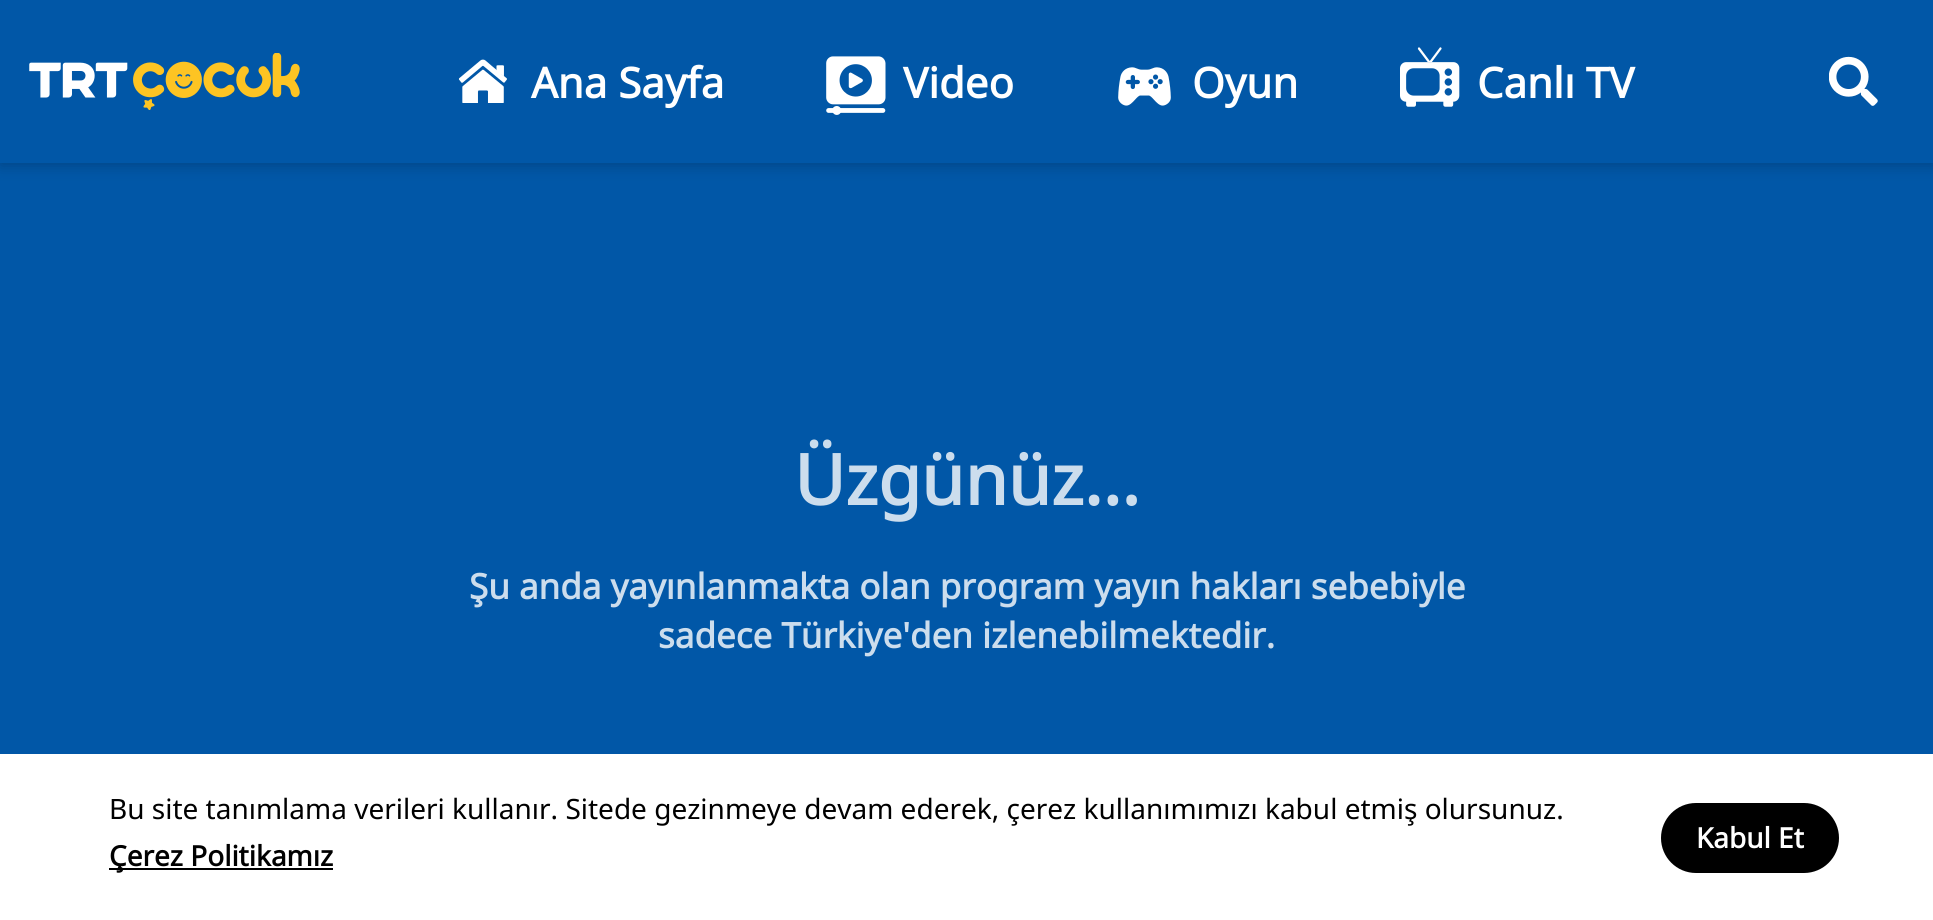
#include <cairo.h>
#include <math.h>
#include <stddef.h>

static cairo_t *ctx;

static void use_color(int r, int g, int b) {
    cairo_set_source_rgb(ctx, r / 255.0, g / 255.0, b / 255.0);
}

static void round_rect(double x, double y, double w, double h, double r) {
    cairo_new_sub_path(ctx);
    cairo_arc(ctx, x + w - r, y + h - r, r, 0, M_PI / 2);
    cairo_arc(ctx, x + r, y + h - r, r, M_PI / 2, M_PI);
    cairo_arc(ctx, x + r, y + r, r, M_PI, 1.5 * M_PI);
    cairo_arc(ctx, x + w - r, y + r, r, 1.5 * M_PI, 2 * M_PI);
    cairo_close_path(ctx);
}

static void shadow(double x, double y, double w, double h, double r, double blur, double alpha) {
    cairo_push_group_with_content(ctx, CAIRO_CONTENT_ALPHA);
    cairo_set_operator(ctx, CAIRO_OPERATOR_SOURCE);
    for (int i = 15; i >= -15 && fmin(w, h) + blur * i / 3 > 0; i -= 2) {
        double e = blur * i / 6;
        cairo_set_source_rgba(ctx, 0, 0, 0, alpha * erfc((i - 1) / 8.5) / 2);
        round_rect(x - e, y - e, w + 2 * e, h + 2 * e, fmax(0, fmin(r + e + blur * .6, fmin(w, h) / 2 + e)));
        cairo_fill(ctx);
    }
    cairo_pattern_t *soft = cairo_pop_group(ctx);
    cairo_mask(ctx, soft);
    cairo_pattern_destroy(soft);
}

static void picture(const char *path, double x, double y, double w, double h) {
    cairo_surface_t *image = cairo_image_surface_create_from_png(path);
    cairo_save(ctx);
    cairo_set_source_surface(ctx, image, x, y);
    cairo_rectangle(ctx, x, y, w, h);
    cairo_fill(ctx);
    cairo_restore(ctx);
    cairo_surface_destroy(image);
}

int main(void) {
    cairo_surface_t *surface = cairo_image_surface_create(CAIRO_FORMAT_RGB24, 1933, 920);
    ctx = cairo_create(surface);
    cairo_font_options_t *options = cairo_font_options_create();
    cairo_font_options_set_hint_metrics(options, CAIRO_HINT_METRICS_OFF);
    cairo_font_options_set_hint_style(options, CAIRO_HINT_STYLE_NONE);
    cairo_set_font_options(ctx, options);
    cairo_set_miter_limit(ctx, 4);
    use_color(1, 87, 167);
    cairo_paint(ctx);
    cairo_save(ctx);
    cairo_set_fill_rule(ctx, CAIRO_FILL_RULE_EVEN_ODD);
    cairo_new_path(ctx);
    cairo_move_to(ctx, 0, 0);
    cairo_line_to(ctx, 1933, 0);
    cairo_line_to(ctx, 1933, 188);
    cairo_line_to(ctx, 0, 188);
    cairo_close_path(ctx);
    cairo_move_to(ctx, 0, 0);
    cairo_line_to(ctx, 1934, 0);
    cairo_line_to(ctx, 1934, 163);
    cairo_line_to(ctx, 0, 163);
    cairo_close_path(ctx);
    cairo_clip(ctx);
    use_color(0, 0, 0);
    shadow(0, 4, 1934, 162, 0, 7, 0.2);
    cairo_restore(ctx);
    picture("img1.png", 29, 53, 271, 57);
    picture("img2.png", 458, 59, 49, 44);
    cairo_select_font_face(ctx, "Noto Sans", CAIRO_FONT_SLANT_NORMAL, CAIRO_FONT_WEIGHT_BOLD);
    cairo_set_font_size(ctx, 42);
    use_color(255, 255, 255);
    cairo_move_to(ctx, 531, 98);
    cairo_show_text(ctx, "Ana Sayfa");
    picture("img3.png", 826, 56, 60, 59);
    cairo_move_to(ctx, 903, 98);
    cairo_show_text(ctx, "Video");
    picture("img4.png", 1118, 67, 53, 39);
    cairo_move_to(ctx, 1192, 98);
    cairo_show_text(ctx, "Oyun");
    picture("img5.png", 1400, 47, 60, 60);
    cairo_move_to(ctx, 1477, 98);
    cairo_show_text(ctx, "Canlı TV");
    picture("img6.png", 1829, 56, 49, 50);
    cairo_rectangle(ctx, 0, 754, 1933, 166);
    cairo_fill(ctx);
    cairo_select_font_face(ctx, "Noto Sans", CAIRO_FONT_SLANT_NORMAL, CAIRO_FONT_WEIGHT_NORMAL);
    cairo_set_font_size(ctx, 28);
    use_color(0, 0, 0);
    cairo_move_to(ctx, 109, 819);
    cairo_show_text(ctx, "Bu site tanımlama verileri kullanır. Sitede gezinmeye devam ederek, çerez kullanımımızı kabul etmiş olursunuz.");
    cairo_rectangle(ctx, 109, 868, 224, 2);
    cairo_fill(ctx);
    cairo_select_font_face(ctx, "Noto Sans", CAIRO_FONT_SLANT_NORMAL, CAIRO_FONT_WEIGHT_BOLD);
    cairo_move_to(ctx, 109, 866);
    cairo_show_text(ctx, "Çerez Politikamız");
    round_rect(1661, 803, 178, 70, 35);
    cairo_fill(ctx);
    use_color(255, 255, 255);
    cairo_move_to(ctx, 1696, 848);
    cairo_show_text(ctx, "Kabul Et");
    cairo_set_font_size(ctx, 70);
    use_color(204, 221, 237);
    cairo_move_to(ctx, 794, 505);
    cairo_show_text(ctx, "Üzgünüz...");
    cairo_set_font_size(ctx, 35);
    cairo_move_to(ctx, 469, 599);
    cairo_show_text(ctx, "Şu anda yayınlanmakta olan program yayın hakları sebebiyle");
    cairo_move_to(ctx, 658, 648);
    cairo_show_text(ctx, "sadece Türkiye'den izlenebilmektedir.");
    cairo_surface_write_to_png(surface, "result.png");
    cairo_font_options_destroy(options);
    cairo_destroy(ctx);
    cairo_surface_destroy(surface);
    return 0;
}
